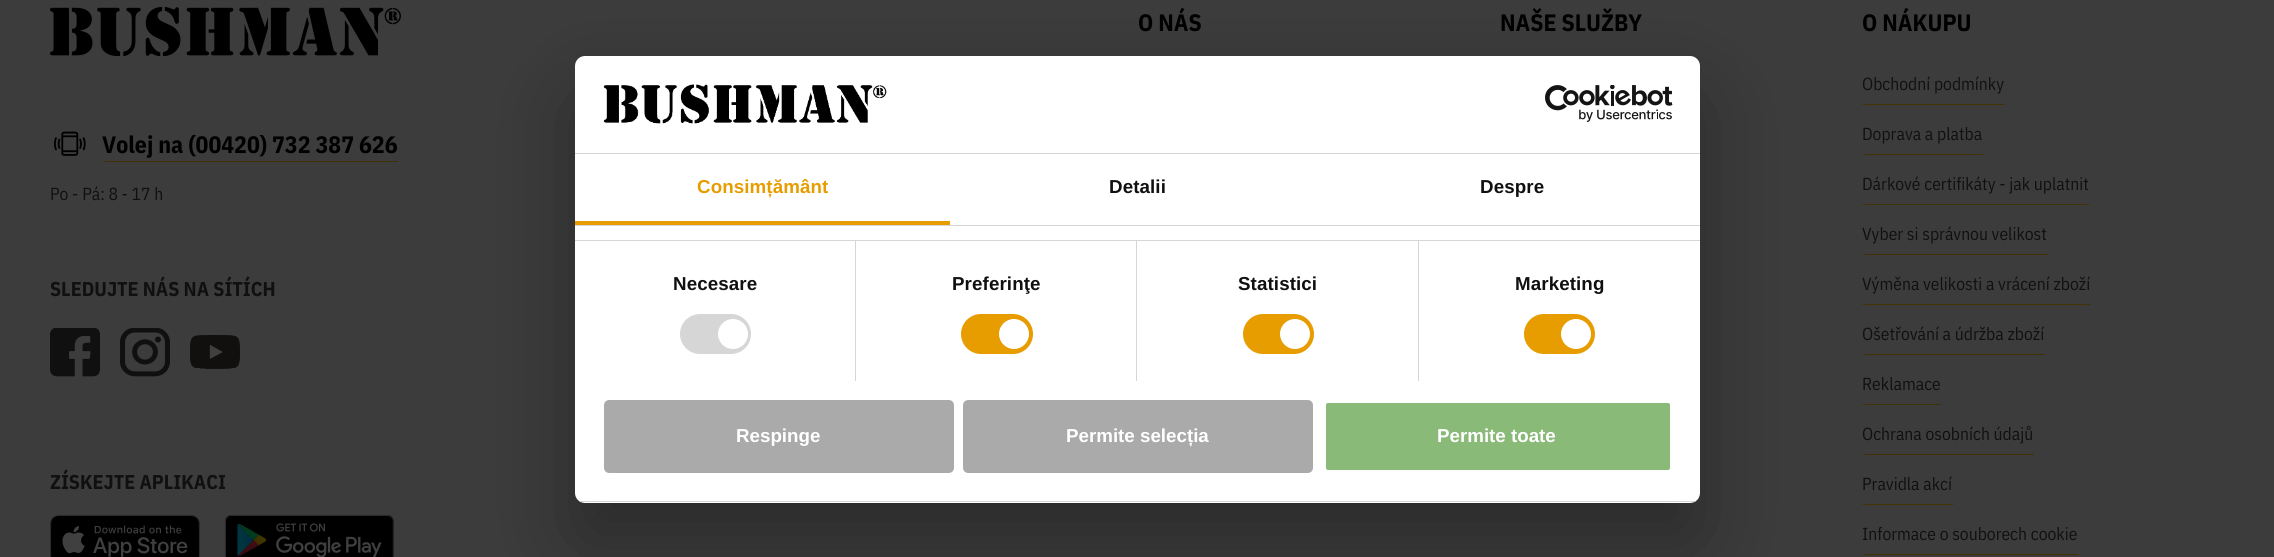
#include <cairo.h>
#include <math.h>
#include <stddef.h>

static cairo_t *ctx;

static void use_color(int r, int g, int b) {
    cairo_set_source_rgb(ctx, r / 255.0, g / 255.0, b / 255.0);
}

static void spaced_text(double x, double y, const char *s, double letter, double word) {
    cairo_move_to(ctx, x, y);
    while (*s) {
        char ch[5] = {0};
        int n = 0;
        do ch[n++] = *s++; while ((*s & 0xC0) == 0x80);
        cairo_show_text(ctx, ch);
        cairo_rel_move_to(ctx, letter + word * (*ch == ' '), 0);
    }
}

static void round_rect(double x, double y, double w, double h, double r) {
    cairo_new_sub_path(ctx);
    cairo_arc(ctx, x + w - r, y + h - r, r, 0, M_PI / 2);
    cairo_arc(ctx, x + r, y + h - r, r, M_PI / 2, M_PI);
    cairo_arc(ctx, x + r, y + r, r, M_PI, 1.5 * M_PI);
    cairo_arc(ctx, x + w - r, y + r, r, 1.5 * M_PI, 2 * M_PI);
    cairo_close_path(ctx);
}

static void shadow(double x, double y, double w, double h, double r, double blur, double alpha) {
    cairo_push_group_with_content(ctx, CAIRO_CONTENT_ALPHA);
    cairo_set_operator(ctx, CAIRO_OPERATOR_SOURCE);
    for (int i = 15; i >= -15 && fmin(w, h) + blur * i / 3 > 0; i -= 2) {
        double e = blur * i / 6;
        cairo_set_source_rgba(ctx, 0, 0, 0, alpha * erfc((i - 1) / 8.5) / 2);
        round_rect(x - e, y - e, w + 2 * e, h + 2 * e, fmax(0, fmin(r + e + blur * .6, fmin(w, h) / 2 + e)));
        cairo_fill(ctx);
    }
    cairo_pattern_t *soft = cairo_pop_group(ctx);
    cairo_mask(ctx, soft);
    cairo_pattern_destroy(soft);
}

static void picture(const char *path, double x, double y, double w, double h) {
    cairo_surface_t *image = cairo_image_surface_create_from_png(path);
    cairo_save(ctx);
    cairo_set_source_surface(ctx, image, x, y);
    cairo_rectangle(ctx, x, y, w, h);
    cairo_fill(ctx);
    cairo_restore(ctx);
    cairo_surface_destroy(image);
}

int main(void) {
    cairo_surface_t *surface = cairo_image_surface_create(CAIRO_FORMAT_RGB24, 2274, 557);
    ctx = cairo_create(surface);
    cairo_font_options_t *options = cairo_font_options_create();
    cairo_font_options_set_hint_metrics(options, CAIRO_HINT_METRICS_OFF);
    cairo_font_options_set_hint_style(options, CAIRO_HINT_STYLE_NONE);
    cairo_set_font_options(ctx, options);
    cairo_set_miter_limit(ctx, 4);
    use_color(60, 60, 60);
    cairo_paint(ctx);
    picture("img1.png", 50, 6, 351, 50);
    picture("img2.png", 53, 131, 33, 25);
    cairo_select_font_face(ctx, "IBM Plex Sans Condensed", CAIRO_FONT_SLANT_NORMAL, CAIRO_FONT_WEIGHT_BOLD);
    cairo_set_font_size(ctx, 23.75);
    use_color(0, 0, 0);
    cairo_move_to(ctx, 102, 153);
    cairo_show_text(ctx, "Volej na (00420) 732 387 626");
    use_color(64, 50, 2);
    cairo_rectangle(ctx, 103, 161, 295, 1);
    cairo_fill(ctx);
    cairo_select_font_face(ctx, "IBM Plex Sans Condensed", CAIRO_FONT_SLANT_NORMAL, CAIRO_FONT_WEIGHT_NORMAL);
    cairo_set_font_size(ctx, 17.5);
    use_color(17, 16, 16);
    cairo_move_to(ctx, 50, 200);
    cairo_show_text(ctx, "Po - Pá: 8 - 17 h");
    cairo_select_font_face(ctx, "IBM Plex Sans Condensed", CAIRO_FONT_SLANT_NORMAL, CAIRO_FONT_WEIGHT_BOLD);
    cairo_set_font_size(ctx, 20);
    cairo_move_to(ctx, 50, 296);
    cairo_show_text(ctx, "SLEDUJTE NÁS NA SÍTÍCH");
    picture("img3.png", 50, 328, 50, 49);
    picture("img4.png", 120, 328, 50, 49);
    picture("img5.png", 190, 335, 50, 34);
    cairo_move_to(ctx, 50, 489);
    cairo_show_text(ctx, "ZÍSKEJTE APLIKACI");
    picture("img6.png", 50, 515, 150, 42);
    picture("img7.png", 225, 515, 169, 42);
    cairo_set_font_size(ctx, 23.75);
    use_color(0, 0, 0);
    cairo_move_to(ctx, 1138, 31);
    cairo_show_text(ctx, "O NÁS");
    cairo_move_to(ctx, 1500, 31);
    cairo_show_text(ctx, "NAŠE SLUŽBY");
    cairo_move_to(ctx, 1862, 31);
    cairo_show_text(ctx, "O NÁKUPU");
    cairo_select_font_face(ctx, "IBM Plex Sans Condensed", CAIRO_FONT_SLANT_NORMAL, CAIRO_FONT_WEIGHT_NORMAL);
    cairo_set_font_size(ctx, 17.5);
    use_color(17, 16, 16);
    cairo_move_to(ctx, 1862, 90);
    cairo_show_text(ctx, "Obchodní podmínky");
    use_color(64, 50, 2);
    cairo_rectangle(ctx, 1863, 104, 142, 1);
    cairo_fill(ctx);
    use_color(17, 16, 16);
    cairo_move_to(ctx, 1862, 140);
    cairo_show_text(ctx, "Doprava a platba");
    use_color(64, 50, 2);
    cairo_rectangle(ctx, 1863, 154, 120, 1);
    cairo_fill(ctx);
    use_color(17, 16, 16);
    cairo_move_to(ctx, 1862, 190);
    cairo_show_text(ctx, "Dárkové certifikáty - jak uplatnit");
    use_color(64, 50, 2);
    cairo_rectangle(ctx, 1863, 204, 226, 1);
    cairo_fill(ctx);
    use_color(17, 16, 16);
    cairo_move_to(ctx, 1862, 240);
    cairo_show_text(ctx, "Vyber si správnou velikost");
    use_color(64, 50, 2);
    cairo_rectangle(ctx, 1863, 254, 185, 1);
    cairo_fill(ctx);
    use_color(17, 16, 16);
    cairo_move_to(ctx, 1862, 290);
    cairo_show_text(ctx, "Výměna velikosti a vrácení zboží");
    use_color(64, 50, 2);
    cairo_rectangle(ctx, 1863, 304, 227, 1);
    cairo_fill(ctx);
    use_color(17, 16, 16);
    cairo_move_to(ctx, 1862, 340);
    cairo_show_text(ctx, "Ošetřování a údržba zboží");
    use_color(64, 50, 2);
    cairo_rectangle(ctx, 1863, 354, 182, 1);
    cairo_fill(ctx);
    use_color(17, 16, 16);
    cairo_move_to(ctx, 1862, 390);
    cairo_show_text(ctx, "Reklamace");
    use_color(64, 50, 2);
    cairo_rectangle(ctx, 1863, 404, 78, 1);
    cairo_fill(ctx);
    use_color(17, 16, 16);
    cairo_move_to(ctx, 1862, 440);
    cairo_show_text(ctx, "Ochrana osobních údajů");
    use_color(64, 50, 2);
    cairo_rectangle(ctx, 1863, 454, 171, 1);
    cairo_fill(ctx);
    use_color(17, 16, 16);
    cairo_move_to(ctx, 1862, 490);
    cairo_show_text(ctx, "Pravidla akcí");
    use_color(64, 50, 2);
    cairo_rectangle(ctx, 1863, 504, 90, 1);
    cairo_fill(ctx);
    use_color(17, 16, 16);
    cairo_move_to(ctx, 1862, 540);
    cairo_show_text(ctx, "Informace o souborech cookie");
    use_color(64, 50, 2);
    cairo_rectangle(ctx, 1863, 554, 215, 1);
    cairo_fill(ctx);
    use_color(0, 0, 0);
    shadow(575, 96, 1125, 447, 10, 42.5, 0.3);
    use_color(255, 255, 255);
    round_rect(575, 56, 1125, 447, 10);
    cairo_fill(ctx);
    use_color(214, 214, 214);
    cairo_rectangle(ctx, 575, 153, 1125, 1);
    cairo_fill(ctx);
    picture("img8.png", 603, 84, 284, 40);
    picture("img9.png", 1545, 85, 128, 37);
    cairo_rectangle(ctx, 575, 225, 1125, 1);
    cairo_fill(ctx);
    use_color(231, 156, 0);
    cairo_rectangle(ctx, 575, 221, 375, 4);
    cairo_fill(ctx);
    cairo_select_font_face(ctx, "Liberation Sans", CAIRO_FONT_SLANT_NORMAL, CAIRO_FONT_WEIGHT_BOLD);
    cairo_set_font_size(ctx, 18.75);
    spaced_text(697, 193, "Consimțământ", 0.1, 0);
    use_color(17, 16, 16);
    spaced_text(1109, 193, "Detalii", 0.1, 0);
    spaced_text(1480, 193, "Despre", 0.1, 0);
    use_color(214, 214, 214);
    cairo_rectangle(ctx, 575, 240, 1125, 1);
    cairo_fill(ctx);
    cairo_rectangle(ctx, 855, 241, 1, 140);
    cairo_fill(ctx);
    use_color(17, 16, 16);
    spaced_text(673, 290, "Necesare", 0.1, 0);
    use_color(214, 214, 214);
    round_rect(680, 314, 71, 40, 20);
    cairo_fill(ctx);
    use_color(255, 255, 255);
    cairo_arc(ctx, 733, 334, 15, 0, 2 * M_PI);
    cairo_fill(ctx);
    use_color(214, 214, 214);
    cairo_rectangle(ctx, 1136, 241, 1, 140);
    cairo_fill(ctx);
    use_color(17, 16, 16);
    spaced_text(952, 290, "Preferinţe", 0.1, 0);
    use_color(231, 156, 0);
    round_rect(961, 314, 72, 40, 20);
    cairo_fill(ctx);
    use_color(255, 255, 255);
    cairo_arc(ctx, 1014, 334, 15, 0, 2 * M_PI);
    cairo_fill(ctx);
    use_color(214, 214, 214);
    cairo_rectangle(ctx, 1418, 241, 1, 140);
    cairo_fill(ctx);
    use_color(17, 16, 16);
    spaced_text(1238, 290, "Statistici", 0.1, 0);
    use_color(231, 156, 0);
    round_rect(1243, 314, 71, 40, 20);
    cairo_fill(ctx);
    use_color(255, 255, 255);
    cairo_arc(ctx, 1295, 334, 15, 0, 2 * M_PI);
    cairo_fill(ctx);
    use_color(17, 16, 16);
    spaced_text(1515, 290, "Marketing", 0.1, 0);
    use_color(231, 156, 0);
    round_rect(1524, 314, 71, 40, 20);
    cairo_fill(ctx);
    use_color(255, 255, 255);
    cairo_arc(ctx, 1576, 334, 15, 0, 2 * M_PI);
    cairo_fill(ctx);
    cairo_save(ctx);
    round_rect(575, 56, 1125, 447, 10);
    cairo_clip(ctx);
    use_color(214, 214, 214);
    cairo_rectangle(ctx, 575, 501, 1125, 1);
    cairo_fill(ctx);
    cairo_restore(ctx);
    use_color(170, 170, 170);
    round_rect(605.5, 401.5, 347, 70, 3.5);
    cairo_fill_preserve(ctx);
    cairo_set_line_width(ctx, 3);
    cairo_stroke(ctx);
    use_color(255, 255, 255);
    cairo_move_to(ctx, 736, 442);
    cairo_show_text(ctx, "Respinge");
    use_color(170, 170, 170);
    round_rect(964.5, 401.5, 347, 70, 3.5);
    cairo_fill_preserve(ctx);
    cairo_stroke(ctx);
    use_color(255, 255, 255);
    cairo_move_to(ctx, 1066, 442);
    cairo_show_text(ctx, "Permite selecția");
    use_color(138, 186, 120);
    round_rect(1324.5, 401.5, 347, 70, 3.5);
    cairo_fill_preserve(ctx);
    use_color(255, 255, 255);
    cairo_stroke(ctx);
    cairo_move_to(ctx, 1437, 442);
    cairo_show_text(ctx, "Permite toate");
    cairo_surface_write_to_png(surface, "result.png");
    cairo_font_options_destroy(options);
    cairo_destroy(ctx);
    cairo_surface_destroy(surface);
    return 0;
}
